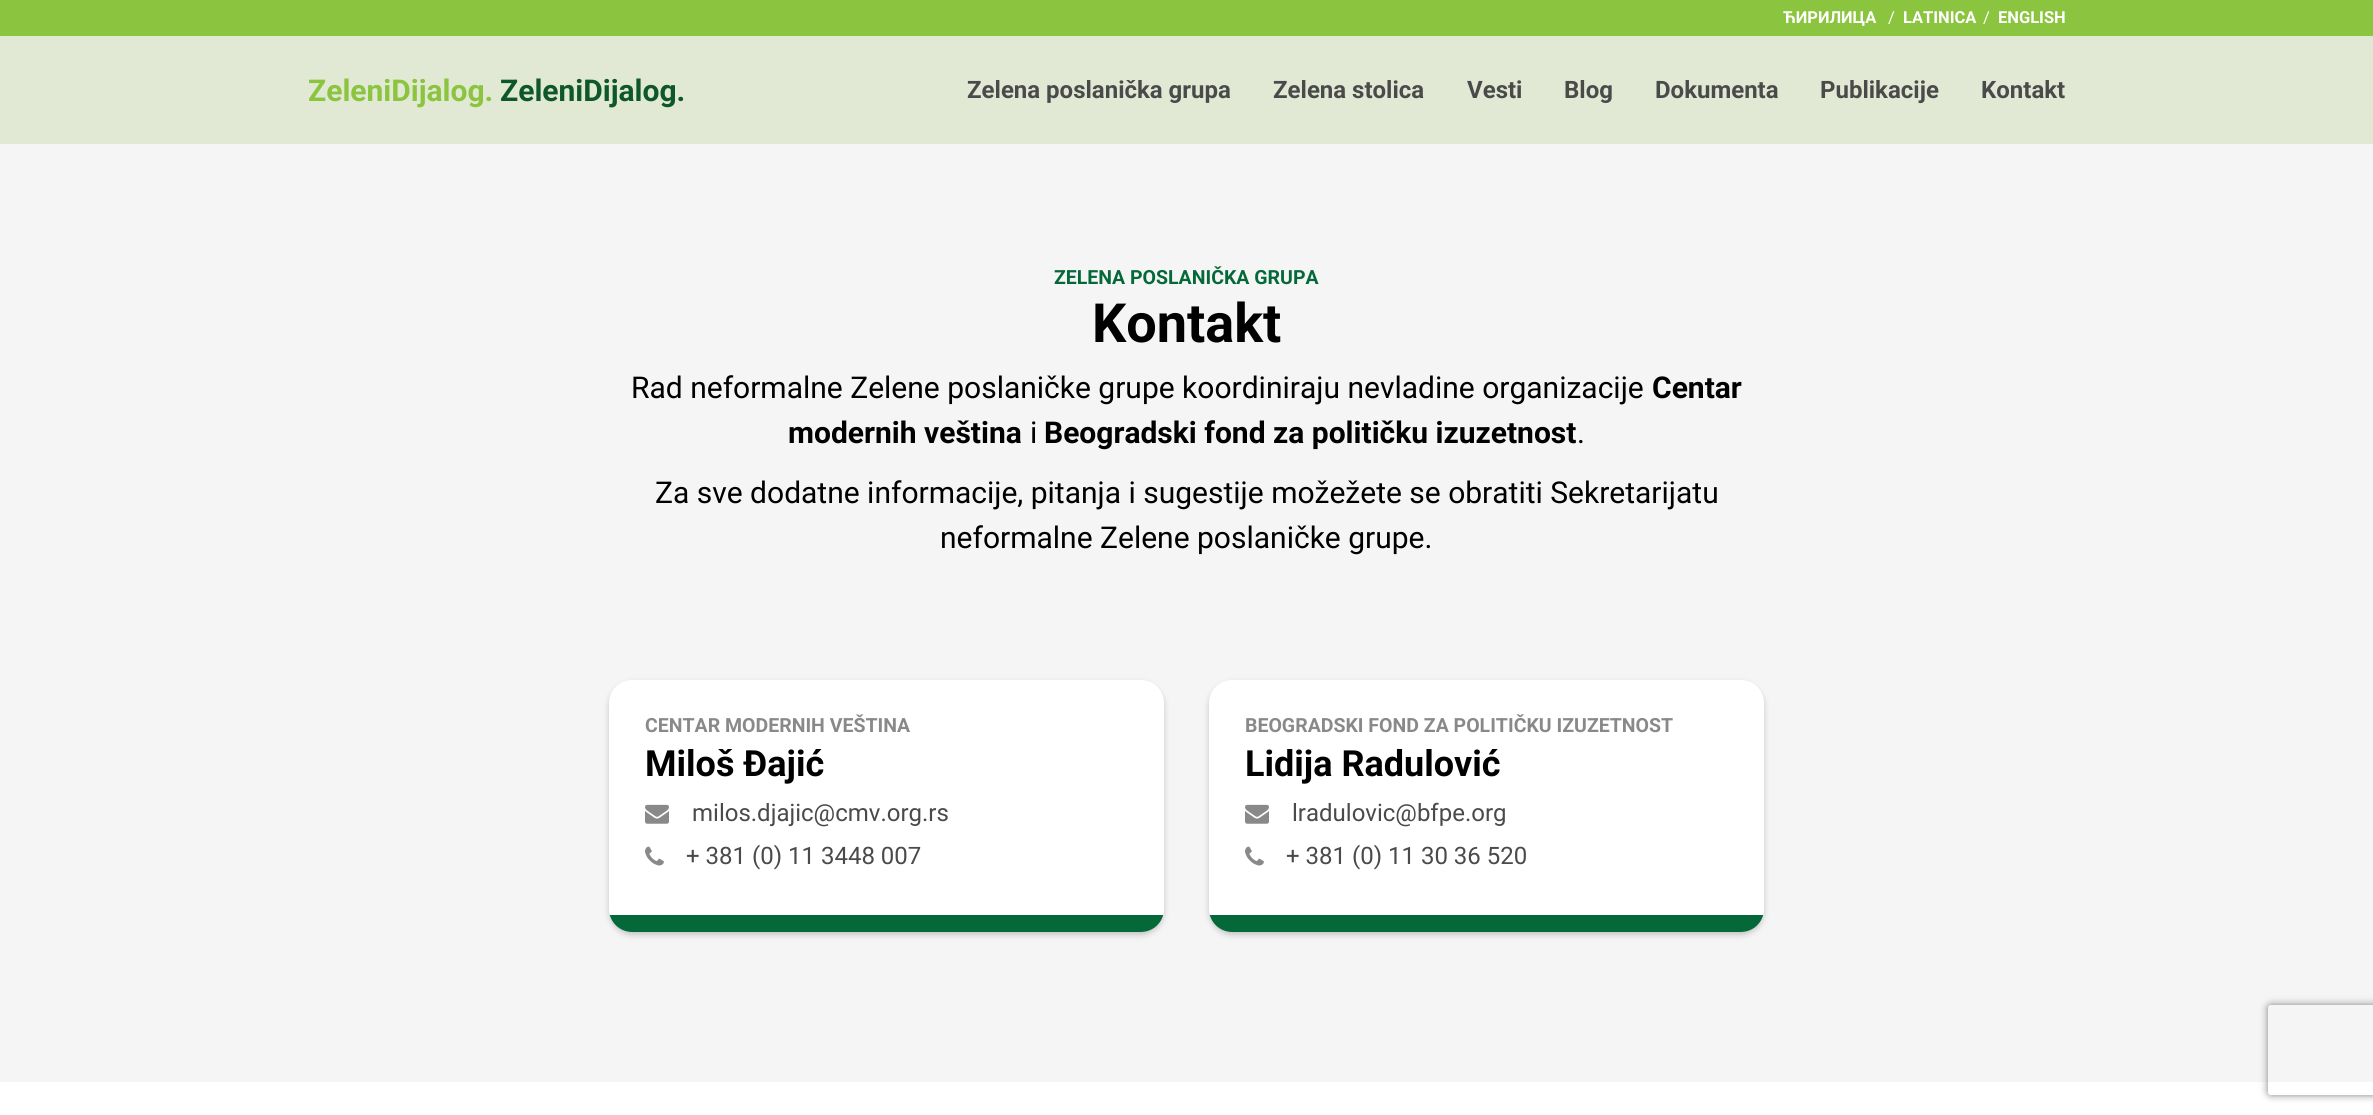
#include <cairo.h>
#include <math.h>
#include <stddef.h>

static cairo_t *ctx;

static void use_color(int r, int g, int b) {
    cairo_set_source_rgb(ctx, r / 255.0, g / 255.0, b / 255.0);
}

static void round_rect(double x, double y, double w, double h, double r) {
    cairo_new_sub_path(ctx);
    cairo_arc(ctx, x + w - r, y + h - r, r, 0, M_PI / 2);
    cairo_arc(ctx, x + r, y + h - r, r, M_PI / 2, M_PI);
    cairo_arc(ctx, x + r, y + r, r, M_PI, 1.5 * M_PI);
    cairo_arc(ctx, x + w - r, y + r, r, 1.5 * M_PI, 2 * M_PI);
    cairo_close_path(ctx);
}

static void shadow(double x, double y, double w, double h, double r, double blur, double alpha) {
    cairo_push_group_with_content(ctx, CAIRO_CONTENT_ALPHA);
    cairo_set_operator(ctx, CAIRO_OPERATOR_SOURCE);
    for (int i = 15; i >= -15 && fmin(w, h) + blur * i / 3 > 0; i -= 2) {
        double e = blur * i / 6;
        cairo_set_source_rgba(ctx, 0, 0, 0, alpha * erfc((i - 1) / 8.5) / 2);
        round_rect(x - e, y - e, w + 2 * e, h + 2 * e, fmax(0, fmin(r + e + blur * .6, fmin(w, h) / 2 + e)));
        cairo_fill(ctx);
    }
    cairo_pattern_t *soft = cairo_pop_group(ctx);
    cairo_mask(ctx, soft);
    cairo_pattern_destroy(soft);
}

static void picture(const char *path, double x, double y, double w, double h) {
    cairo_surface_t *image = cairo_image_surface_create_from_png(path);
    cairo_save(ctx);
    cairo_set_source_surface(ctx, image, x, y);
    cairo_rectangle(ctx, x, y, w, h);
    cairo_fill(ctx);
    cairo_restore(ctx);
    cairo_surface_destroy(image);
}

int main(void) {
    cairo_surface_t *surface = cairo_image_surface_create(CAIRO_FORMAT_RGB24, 2373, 1115);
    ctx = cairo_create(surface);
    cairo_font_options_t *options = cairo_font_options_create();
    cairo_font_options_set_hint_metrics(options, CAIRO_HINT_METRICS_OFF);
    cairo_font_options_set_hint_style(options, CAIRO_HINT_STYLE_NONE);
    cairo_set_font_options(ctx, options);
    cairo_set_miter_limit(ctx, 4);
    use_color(255, 255, 255);
    cairo_paint(ctx);
    use_color(139, 196, 62);
    cairo_rectangle(ctx, 0, 0, 2373, 36);
    cairo_fill(ctx);
    cairo_select_font_face(ctx, "Roboto", CAIRO_FONT_SLANT_NORMAL, CAIRO_FONT_WEIGHT_BOLD);
    cairo_set_font_size(ctx, 16.5);
    use_color(255, 255, 255);
    cairo_move_to(ctx, 1783, 23);
    cairo_show_text(ctx, "ЋИРИЛИЦА");
    cairo_select_font_face(ctx, "Roboto", CAIRO_FONT_SLANT_NORMAL, CAIRO_FONT_WEIGHT_NORMAL);
    cairo_move_to(ctx, 1888, 23);
    cairo_show_text(ctx, "/");
    cairo_select_font_face(ctx, "Roboto", CAIRO_FONT_SLANT_NORMAL, CAIRO_FONT_WEIGHT_BOLD);
    cairo_move_to(ctx, 1903, 23);
    cairo_show_text(ctx, "LATINICA");
    cairo_select_font_face(ctx, "Roboto", CAIRO_FONT_SLANT_NORMAL, CAIRO_FONT_WEIGHT_NORMAL);
    cairo_move_to(ctx, 1983, 23);
    cairo_show_text(ctx, "/");
    cairo_select_font_face(ctx, "Roboto", CAIRO_FONT_SLANT_NORMAL, CAIRO_FONT_WEIGHT_BOLD);
    cairo_move_to(ctx, 1998, 23);
    cairo_show_text(ctx, "ENGLISH");
    use_color(225, 233, 212);
    cairo_rectangle(ctx, 0, 36, 2373, 108);
    cairo_fill(ctx);
    cairo_set_font_size(ctx, 30);
    use_color(139, 196, 62);
    cairo_move_to(ctx, 308, 101);
    cairo_show_text(ctx, "ZeleniDijalog.");
    use_color(14, 87, 43);
    cairo_move_to(ctx, 500, 101);
    cairo_show_text(ctx, "ZeleniDijalog.");
    cairo_set_font_size(ctx, 24);
    use_color(74, 74, 74);
    cairo_move_to(ctx, 967, 98);
    cairo_show_text(ctx, "Zelena poslanička grupa");
    cairo_move_to(ctx, 1273, 98);
    cairo_show_text(ctx, "Zelena stolica");
    cairo_move_to(ctx, 1467, 98);
    cairo_show_text(ctx, "Vesti");
    cairo_move_to(ctx, 1564, 98);
    cairo_show_text(ctx, "Blog");
    cairo_move_to(ctx, 1655, 98);
    cairo_show_text(ctx, "Dokumenta");
    cairo_move_to(ctx, 1820, 98);
    cairo_show_text(ctx, "Publikacije");
    cairo_move_to(ctx, 1981, 98);
    cairo_show_text(ctx, "Kontakt");
    use_color(245, 245, 245);
    cairo_rectangle(ctx, 0, 144, 2373, 938);
    cairo_fill(ctx);
    cairo_set_font_size(ctx, 19.5);
    use_color(5, 104, 57);
    cairo_move_to(ctx, 1054, 284);
    cairo_show_text(ctx, "ZELENA POSLANIČKA GRUPA");
    cairo_set_font_size(ctx, 54);
    use_color(0, 0, 0);
    cairo_move_to(ctx, 1092, 342);
    cairo_show_text(ctx, "Kontakt");
    cairo_select_font_face(ctx, "Roboto", CAIRO_FONT_SLANT_NORMAL, CAIRO_FONT_WEIGHT_NORMAL);
    cairo_set_font_size(ctx, 30);
    cairo_move_to(ctx, 631, 398);
    cairo_show_text(ctx, "Rad neformalne Zelene poslaničke grupe koordiniraju nevladine organizacije");
    cairo_select_font_face(ctx, "Roboto", CAIRO_FONT_SLANT_NORMAL, CAIRO_FONT_WEIGHT_BOLD);
    cairo_move_to(ctx, 1652, 398);
    cairo_show_text(ctx, "Centar");
    cairo_move_to(ctx, 788, 443);
    cairo_show_text(ctx, "modernih veština");
    cairo_select_font_face(ctx, "Roboto", CAIRO_FONT_SLANT_NORMAL, CAIRO_FONT_WEIGHT_NORMAL);
    cairo_move_to(ctx, 1030, 443);
    cairo_show_text(ctx, "i");
    cairo_select_font_face(ctx, "Roboto", CAIRO_FONT_SLANT_NORMAL, CAIRO_FONT_WEIGHT_BOLD);
    cairo_move_to(ctx, 1044, 443);
    cairo_show_text(ctx, "Beogradski fond za političku izuzetnost");
    cairo_select_font_face(ctx, "Roboto", CAIRO_FONT_SLANT_NORMAL, CAIRO_FONT_WEIGHT_NORMAL);
    cairo_move_to(ctx, 1577, 443);
    cairo_show_text(ctx, ".");
    cairo_move_to(ctx, 655, 503);
    cairo_show_text(ctx, "Za sve dodatne informacije, pitanja i sugestije možežete se obratiti Sekretarijatu");
    cairo_move_to(ctx, 940, 548);
    cairo_show_text(ctx, "neformalne Zelene poslaničke grupe.");
    use_color(0, 0, 0);
    shadow(609, 683, 555, 252, 23, 3, 0.2);
    use_color(255, 255, 255);
    round_rect(609, 680, 555, 252, 23);
    cairo_fill(ctx);
    cairo_select_font_face(ctx, "Roboto", CAIRO_FONT_SLANT_NORMAL, CAIRO_FONT_WEIGHT_BOLD);
    cairo_set_font_size(ctx, 19.5);
    use_color(137, 137, 137);
    cairo_move_to(ctx, 645, 732);
    cairo_show_text(ctx, "CENTAR MODERNIH VEŠTINA");
    cairo_set_font_size(ctx, 36);
    use_color(0, 0, 0);
    cairo_move_to(ctx, 645, 776);
    cairo_show_text(ctx, "Miloš Đajić");
    picture("img1.png", 645, 804, 24, 20);
    cairo_select_font_face(ctx, "Roboto", CAIRO_FONT_SLANT_NORMAL, CAIRO_FONT_WEIGHT_NORMAL);
    cairo_set_font_size(ctx, 24);
    use_color(74, 74, 74);
    cairo_move_to(ctx, 692, 821);
    cairo_show_text(ctx, "milos.djajic@cmv.org.rs");
    picture("img2.png", 645, 846, 19, 20);
    cairo_move_to(ctx, 686, 864);
    cairo_show_text(ctx, "+ 381 (0) 11 3448 007");
    cairo_save(ctx);
    round_rect(609, 680, 555, 252, 23);
    cairo_clip(ctx);
    use_color(5, 104, 57);
    cairo_rectangle(ctx, 609, 915, 555, 17);
    cairo_fill(ctx);
    cairo_restore(ctx);
    use_color(0, 0, 0);
    shadow(1209, 683, 555, 252, 23, 3, 0.2);
    use_color(255, 255, 255);
    round_rect(1209, 680, 555, 252, 23);
    cairo_fill(ctx);
    cairo_select_font_face(ctx, "Roboto", CAIRO_FONT_SLANT_NORMAL, CAIRO_FONT_WEIGHT_BOLD);
    cairo_set_font_size(ctx, 19.5);
    use_color(137, 137, 137);
    cairo_move_to(ctx, 1245, 732);
    cairo_show_text(ctx, "BEOGRADSKI FOND ZA POLITIČKU IZUZETNOST");
    cairo_set_font_size(ctx, 36);
    use_color(0, 0, 0);
    cairo_move_to(ctx, 1245, 776);
    cairo_show_text(ctx, "Lidija Radulović");
    picture("img1.png", 1245, 804, 24, 20);
    cairo_select_font_face(ctx, "Roboto", CAIRO_FONT_SLANT_NORMAL, CAIRO_FONT_WEIGHT_NORMAL);
    cairo_set_font_size(ctx, 24);
    use_color(74, 74, 74);
    cairo_move_to(ctx, 1292, 821);
    cairo_show_text(ctx, "lradulovic@bfpe.org");
    picture("img2.png", 1245, 846, 19, 20);
    cairo_move_to(ctx, 1286, 864);
    cairo_show_text(ctx, "+ 381 (0) 11 30 36 520");
    cairo_save(ctx);
    round_rect(1209, 680, 555, 252, 23);
    cairo_clip(ctx);
    use_color(5, 104, 57);
    cairo_rectangle(ctx, 1209, 915, 555, 17);
    cairo_fill(ctx);
    cairo_restore(ctx);
    cairo_save(ctx);
    cairo_set_fill_rule(ctx, CAIRO_FILL_RULE_EVEN_ODD);
    cairo_new_path(ctx);
    cairo_move_to(ctx, 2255, 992);
    cairo_line_to(ctx, 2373, 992);
    cairo_line_to(ctx, 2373, 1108);
    cairo_line_to(ctx, 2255, 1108);
    cairo_close_path(ctx);
    cairo_move_to(ctx, 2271, 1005);
    cairo_line_to(ctx, 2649, 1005);
    cairo_curve_to(ctx, 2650.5, 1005, 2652, 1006.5, 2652, 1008);
    cairo_line_to(ctx, 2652, 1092);
    cairo_curve_to(ctx, 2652, 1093.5, 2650.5, 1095, 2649, 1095);
    cairo_line_to(ctx, 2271, 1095);
    cairo_curve_to(ctx, 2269.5, 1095, 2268, 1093.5, 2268, 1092);
    cairo_line_to(ctx, 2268, 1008);
    cairo_curve_to(ctx, 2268, 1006.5, 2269.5, 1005, 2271, 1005);
    cairo_close_path(ctx);
    cairo_clip(ctx);
    use_color(128, 128, 128);
    shadow(2268, 1005, 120, 90, 3, 4, 1);
    cairo_restore(ctx);
    cairo_surface_write_to_png(surface, "result.png");
    cairo_font_options_destroy(options);
    cairo_destroy(ctx);
    cairo_surface_destroy(surface);
    return 0;
}
